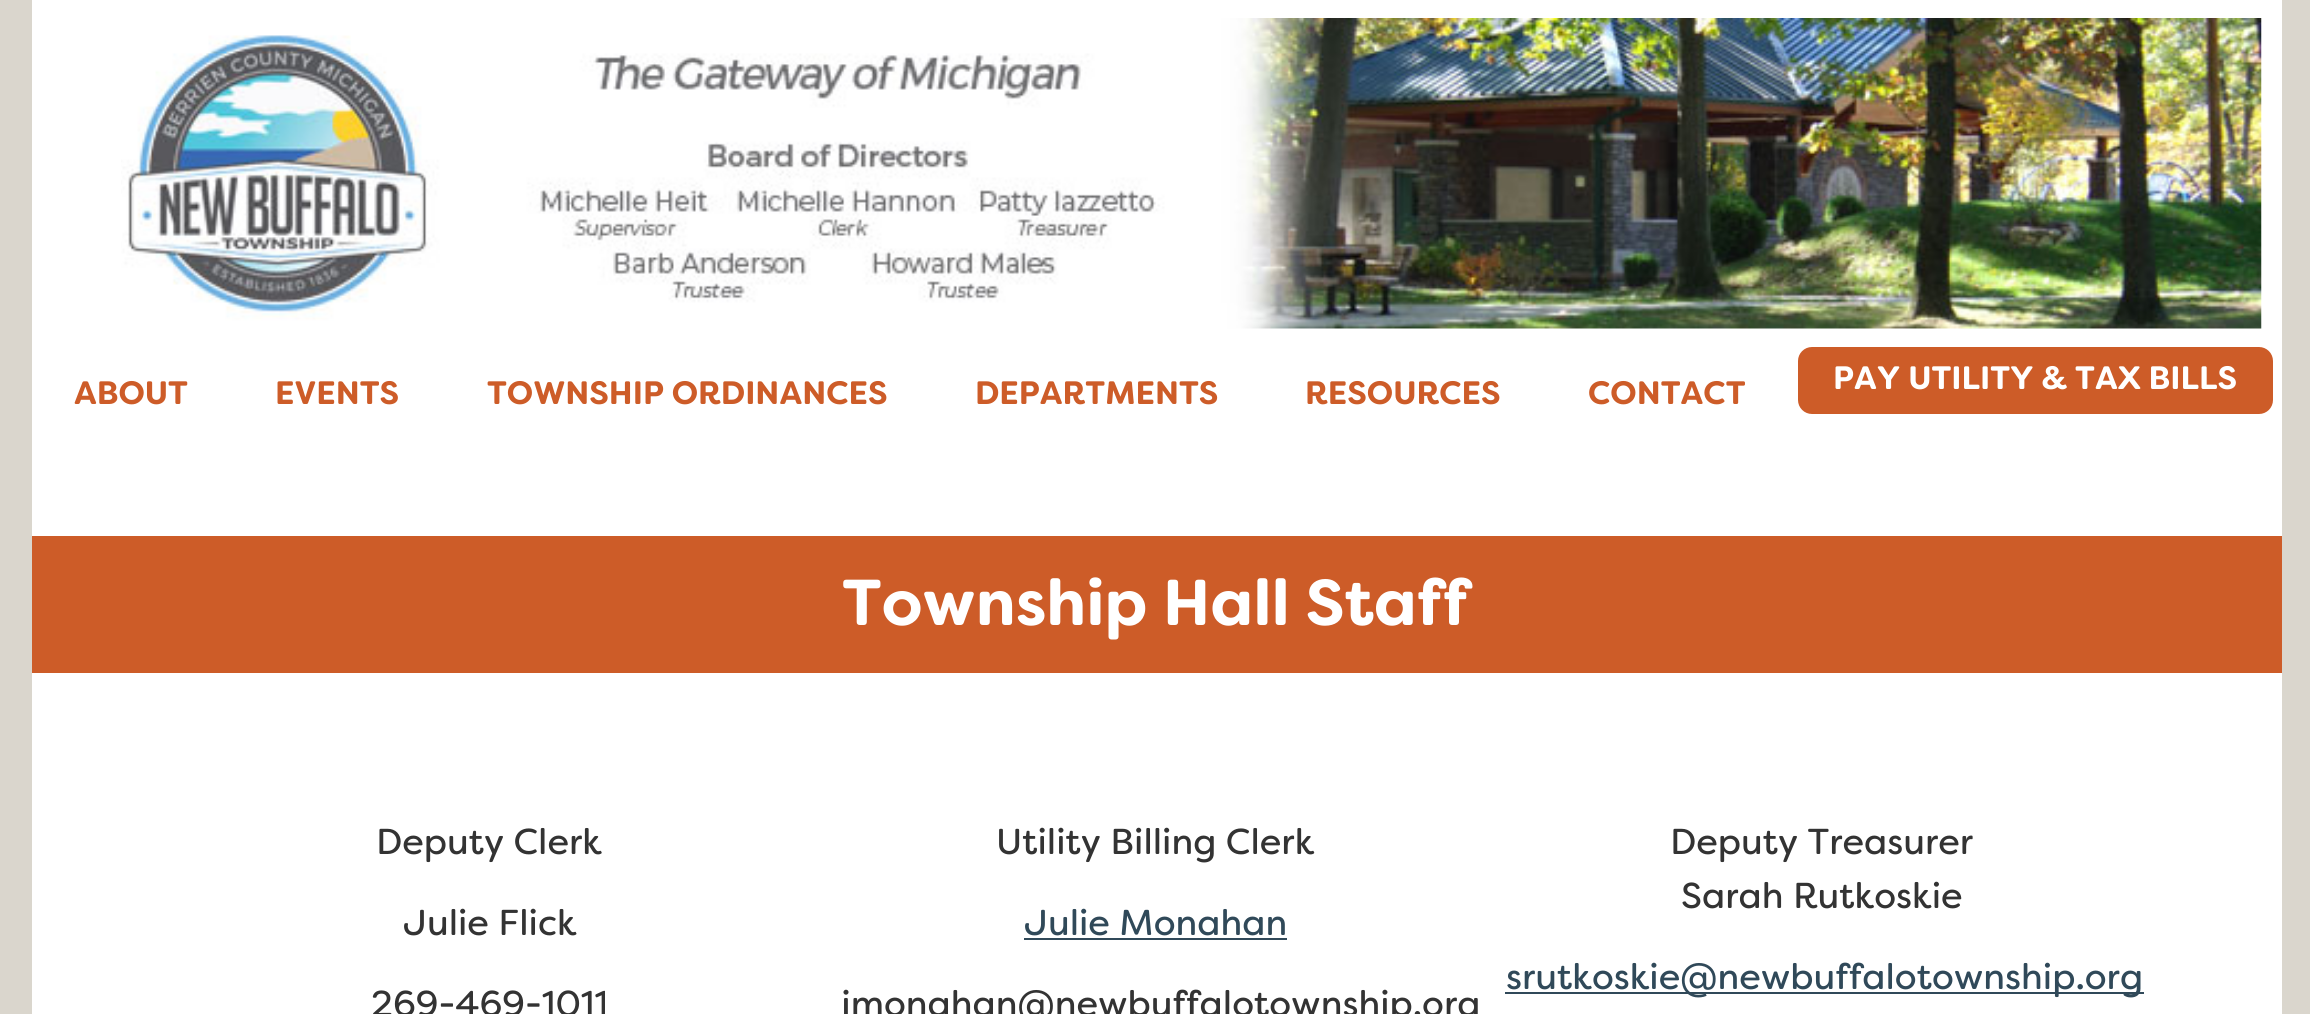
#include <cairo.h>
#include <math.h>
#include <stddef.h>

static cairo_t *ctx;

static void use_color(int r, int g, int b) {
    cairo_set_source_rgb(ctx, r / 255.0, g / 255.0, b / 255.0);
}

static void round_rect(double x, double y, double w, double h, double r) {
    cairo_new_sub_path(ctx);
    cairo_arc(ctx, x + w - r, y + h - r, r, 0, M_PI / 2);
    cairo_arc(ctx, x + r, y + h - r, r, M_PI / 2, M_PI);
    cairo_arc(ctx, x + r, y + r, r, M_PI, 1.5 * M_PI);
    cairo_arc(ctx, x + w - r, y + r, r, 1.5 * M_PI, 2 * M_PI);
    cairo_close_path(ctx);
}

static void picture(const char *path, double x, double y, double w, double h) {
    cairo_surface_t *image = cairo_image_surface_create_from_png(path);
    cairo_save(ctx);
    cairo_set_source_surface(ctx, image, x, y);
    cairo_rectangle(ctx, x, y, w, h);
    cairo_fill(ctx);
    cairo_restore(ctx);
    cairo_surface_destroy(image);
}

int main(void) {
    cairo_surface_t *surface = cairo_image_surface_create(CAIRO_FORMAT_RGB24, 2310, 1014);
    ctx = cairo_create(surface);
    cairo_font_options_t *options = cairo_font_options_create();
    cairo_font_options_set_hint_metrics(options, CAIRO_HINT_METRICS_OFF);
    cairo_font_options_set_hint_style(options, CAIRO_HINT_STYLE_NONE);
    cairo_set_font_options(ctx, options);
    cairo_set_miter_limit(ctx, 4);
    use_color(218, 214, 205);
    cairo_paint(ctx);
    use_color(255, 255, 255);
    cairo_rectangle(ctx, 32, 0, 2250, 1014);
    cairo_fill(ctx);
    picture("img1.png", 121, 18, 2141, 311);
    use_color(205, 92, 40);
    round_rect(1798, 347, 475, 67, 14);
    cairo_fill(ctx);
    cairo_select_font_face(ctx, "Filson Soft", CAIRO_FONT_SLANT_NORMAL, CAIRO_FONT_WEIGHT_BOLD);
    cairo_set_font_size(ctx, 32.4);
    use_color(255, 255, 255);
    cairo_move_to(ctx, 1833, 389);
    cairo_show_text(ctx, "PAY UTILITY & TAX BILLS");
    use_color(205, 92, 40);
    cairo_move_to(ctx, 74, 404);
    cairo_show_text(ctx, "ABOUT");
    cairo_move_to(ctx, 275, 404);
    cairo_show_text(ctx, "EVENTS");
    cairo_move_to(ctx, 487, 404);
    cairo_show_text(ctx, "TOWNSHIP ORDINANCES");
    cairo_move_to(ctx, 975, 404);
    cairo_show_text(ctx, "DEPARTMENTS");
    cairo_move_to(ctx, 1305, 404);
    cairo_show_text(ctx, "RESOURCES");
    cairo_move_to(ctx, 1588, 404);
    cairo_show_text(ctx, "CONTACT");
    cairo_rectangle(ctx, 32, 536, 2250, 137);
    cairo_fill(ctx);
    cairo_set_font_size(ctx, 64.75);
    use_color(255, 255, 255);
    cairo_move_to(ctx, 842, 625);
    cairo_show_text(ctx, "Township Hall Staff");
    cairo_select_font_face(ctx, "Filson Soft", CAIRO_FONT_SLANT_NORMAL, CAIRO_FONT_WEIGHT_NORMAL);
    cairo_set_font_size(ctx, 36);
    use_color(51, 51, 51);
    cairo_move_to(ctx, 376, 854);
    cairo_show_text(ctx, "Deputy Clerk");
    cairo_move_to(ctx, 403, 935);
    cairo_show_text(ctx, "Julie Flick");
    cairo_move_to(ctx, 371, 1016);
    cairo_show_text(ctx, "269-469-1011");
    cairo_move_to(ctx, 996, 854);
    cairo_show_text(ctx, "Utility Billing Clerk");
    use_color(48, 73, 89);
    cairo_move_to(ctx, 1024, 935);
    cairo_show_text(ctx, "Julie Monahan");
    cairo_rectangle(ctx, 1024, 938, 263, 2);
    cairo_fill(ctx);
    use_color(51, 51, 51);
    cairo_move_to(ctx, 840, 1016);
    cairo_show_text(ctx, "jmonahan@newbuffalotownship.org");
    cairo_move_to(ctx, 1670, 854);
    cairo_show_text(ctx, "Deputy Treasurer");
    cairo_move_to(ctx, 1681, 908);
    cairo_show_text(ctx, "Sarah Rutkoskie");
    use_color(48, 73, 89);
    cairo_rectangle(ctx, 1505, 992, 639, 2);
    cairo_fill(ctx);
    cairo_move_to(ctx, 1506, 989);
    cairo_show_text(ctx, "srutkoskie@newbuffalotownship.org");
    cairo_surface_write_to_png(surface, "result.png");
    cairo_font_options_destroy(options);
    cairo_destroy(ctx);
    cairo_surface_destroy(surface);
    return 0;
}
